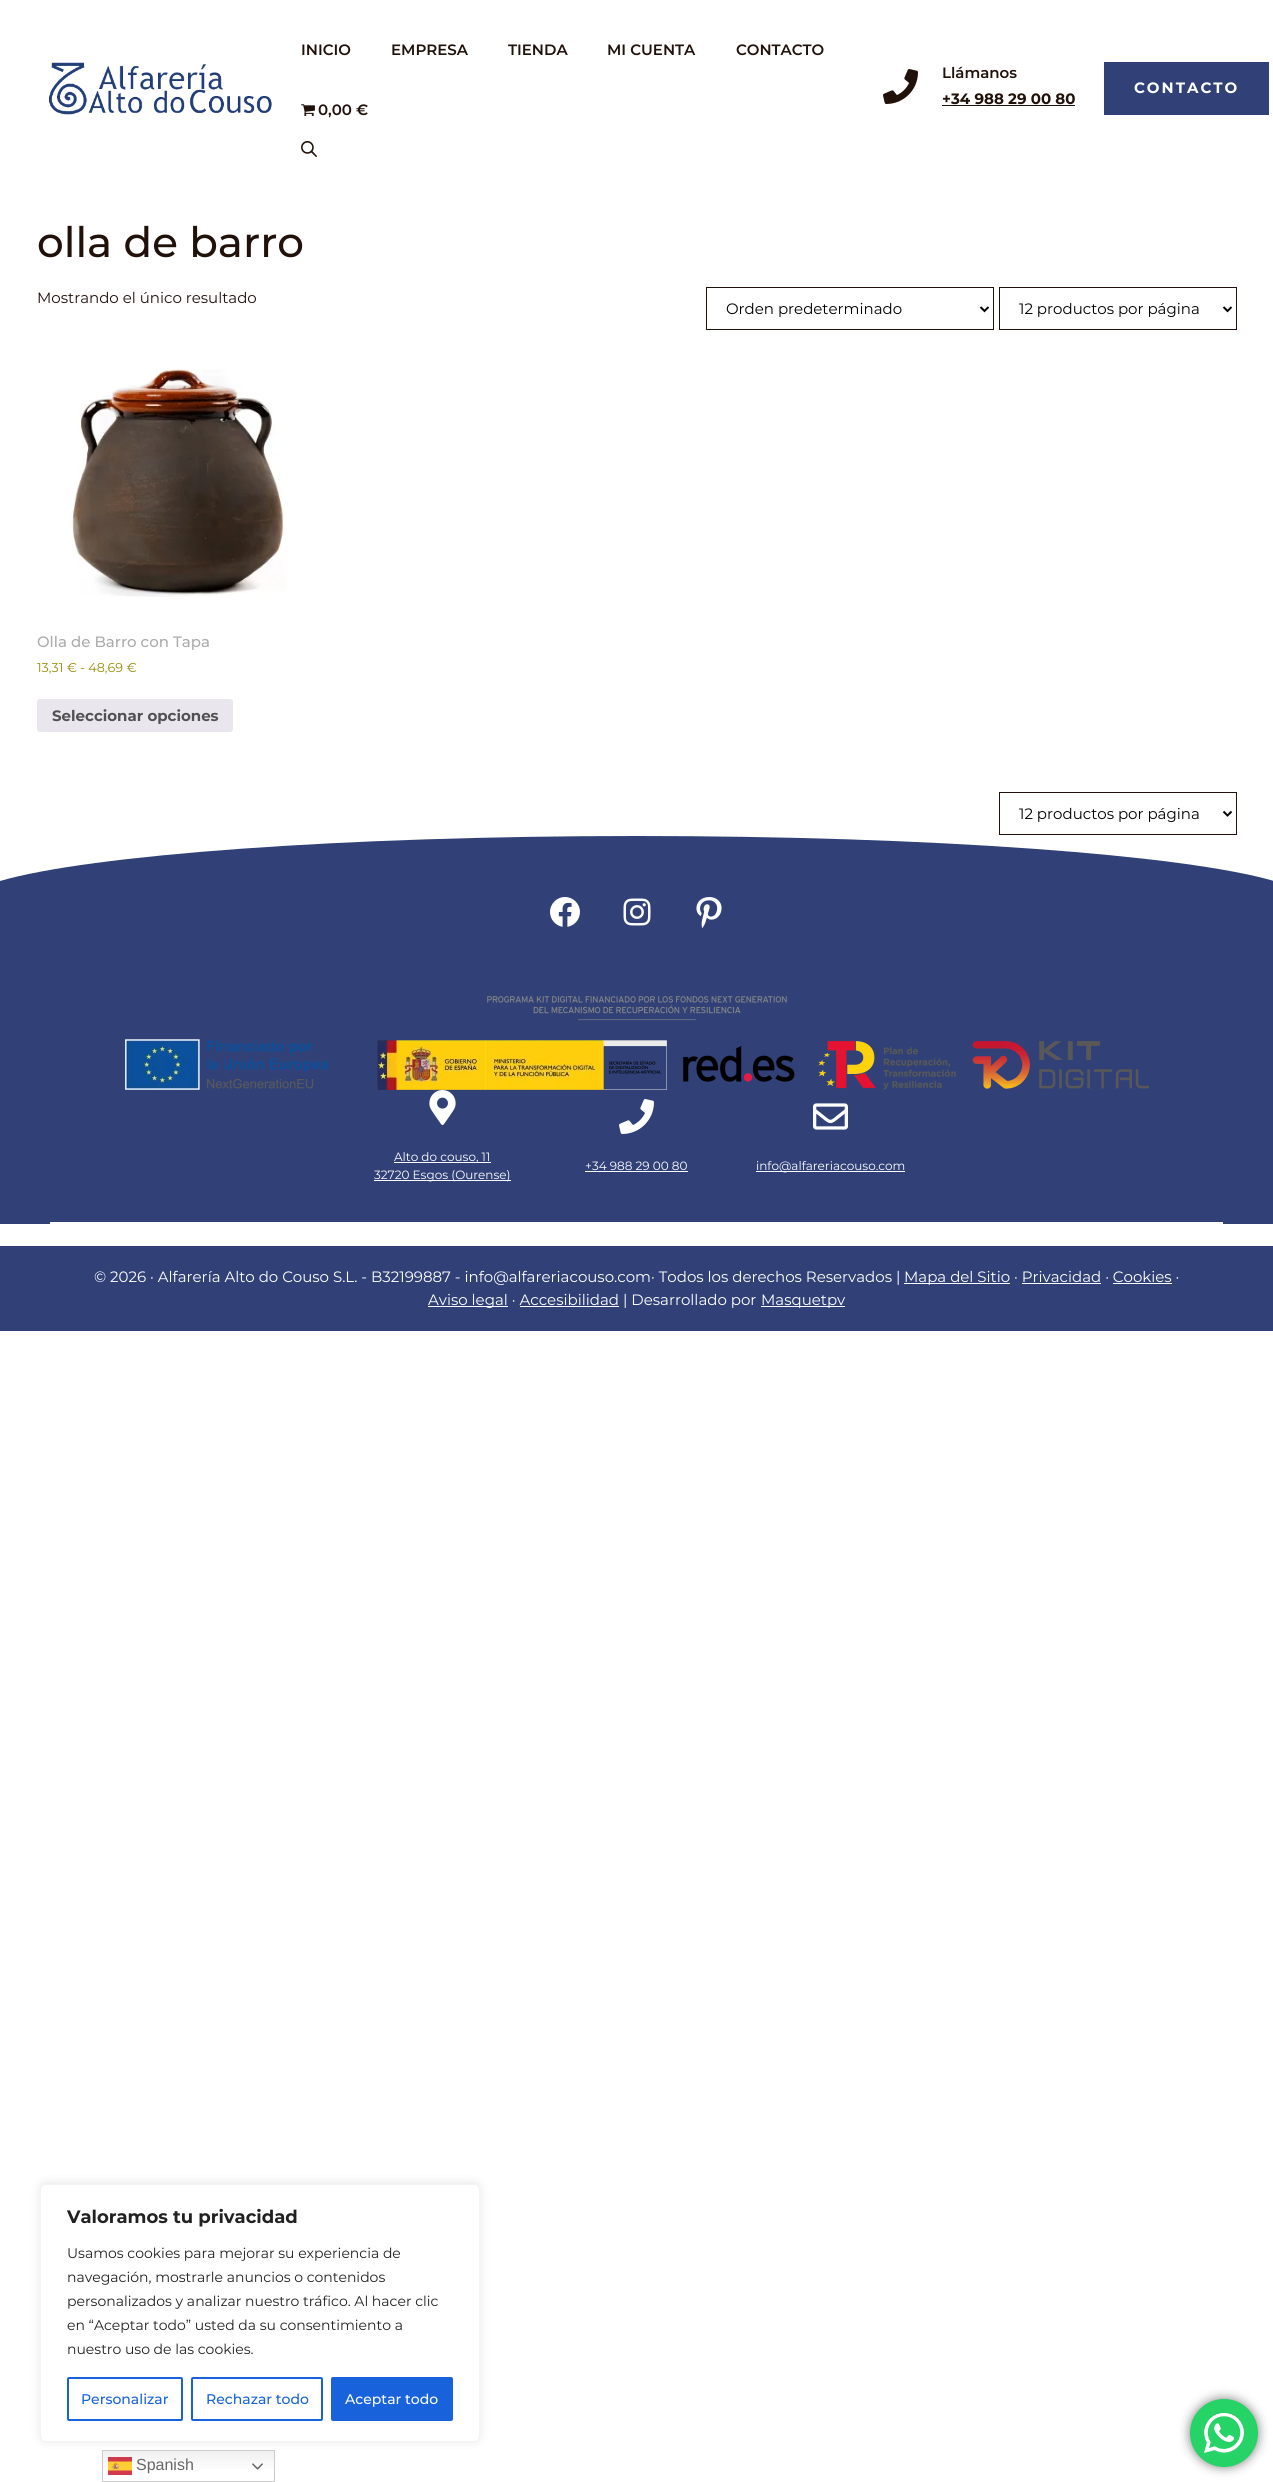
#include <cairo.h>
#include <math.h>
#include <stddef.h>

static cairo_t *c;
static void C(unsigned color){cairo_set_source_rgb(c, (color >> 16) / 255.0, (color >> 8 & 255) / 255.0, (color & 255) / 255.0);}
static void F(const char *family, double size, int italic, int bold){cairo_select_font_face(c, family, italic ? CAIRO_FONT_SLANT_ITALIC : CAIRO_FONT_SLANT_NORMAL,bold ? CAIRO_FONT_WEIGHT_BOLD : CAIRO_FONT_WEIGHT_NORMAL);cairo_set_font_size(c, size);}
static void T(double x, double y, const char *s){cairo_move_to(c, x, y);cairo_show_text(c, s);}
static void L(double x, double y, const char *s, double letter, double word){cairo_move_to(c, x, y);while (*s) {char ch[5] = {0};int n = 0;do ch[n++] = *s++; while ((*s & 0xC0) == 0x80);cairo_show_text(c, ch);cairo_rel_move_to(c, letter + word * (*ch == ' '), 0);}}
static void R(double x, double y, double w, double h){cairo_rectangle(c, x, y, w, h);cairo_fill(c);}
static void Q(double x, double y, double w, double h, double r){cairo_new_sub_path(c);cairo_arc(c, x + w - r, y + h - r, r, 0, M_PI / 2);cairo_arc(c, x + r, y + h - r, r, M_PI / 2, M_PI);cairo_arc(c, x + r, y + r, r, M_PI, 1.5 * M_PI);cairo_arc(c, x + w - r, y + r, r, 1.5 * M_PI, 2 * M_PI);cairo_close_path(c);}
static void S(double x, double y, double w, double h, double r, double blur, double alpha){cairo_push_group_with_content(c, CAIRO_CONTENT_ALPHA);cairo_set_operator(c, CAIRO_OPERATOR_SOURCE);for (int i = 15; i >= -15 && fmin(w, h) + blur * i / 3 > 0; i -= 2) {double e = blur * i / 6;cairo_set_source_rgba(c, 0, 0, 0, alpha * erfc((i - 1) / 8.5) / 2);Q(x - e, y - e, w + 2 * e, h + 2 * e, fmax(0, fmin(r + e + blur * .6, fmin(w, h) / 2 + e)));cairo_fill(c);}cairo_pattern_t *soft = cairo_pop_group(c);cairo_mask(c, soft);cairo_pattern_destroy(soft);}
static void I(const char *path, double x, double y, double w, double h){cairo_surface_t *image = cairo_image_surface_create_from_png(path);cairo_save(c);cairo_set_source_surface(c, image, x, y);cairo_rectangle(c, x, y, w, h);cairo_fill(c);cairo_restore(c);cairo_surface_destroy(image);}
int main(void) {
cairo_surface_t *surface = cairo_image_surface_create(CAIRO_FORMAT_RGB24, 1273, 2482);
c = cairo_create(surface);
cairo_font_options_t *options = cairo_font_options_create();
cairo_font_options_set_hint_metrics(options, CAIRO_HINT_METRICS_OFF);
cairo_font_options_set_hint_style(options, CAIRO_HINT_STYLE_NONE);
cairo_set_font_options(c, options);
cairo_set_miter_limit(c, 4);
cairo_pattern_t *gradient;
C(0xffffff);
cairo_paint(c);
I("1.png",49,62,223,53);
F("Montserrat SemiBold",15,0,0);
C(0x21110b);
T(301,55,"INICIO");
T(391,55,"EMPRESA");
T(508,55,"TIENDA");
T(607,55,"MI CUENTA");
T(736,55,"CONTACTO");
I("2.png",301,104,14,13);
T(318,115,"0,00 €");
I("3.png",301,141,16,16);
I("4.png",883,69,35,35);
T(942,78,"Llámanos");
F("Montserrat",15,0,1);
T(942,104,"+34 988 29 00 80");
R(942,105,133,1);
C(0x314178);
R(1104,62,165,53);
C(0xffffff);
L(1134,93,"CONTACTO",2,0);
F("Montserrat Medium",42,0,0);
C(0x21110b);
T(37,257,"olla de barro");
F("Montserrat",15,0,0);
T(37,303,"Mostrando el único resultado");
cairo_rectangle(c,706.5,287.5,287,42);
cairo_set_line_width(c,1);
cairo_stroke(c);
cairo_new_path(c);
cairo_move_to(c,980.5,307);
cairo_line_to(c,984.5,311);
cairo_line_to(c,988.5,307);
C(0x000000);
cairo_set_line_width(c,2);
cairo_stroke(c);
T(726,314,"Orden predeterminado");
cairo_rectangle(c,999.5,287.5,237,42);
C(0x21110b);
cairo_set_line_width(c,1);
cairo_stroke(c);
cairo_new_path(c);
cairo_move_to(c,1223.5,307);
cairo_line_to(c,1227.5,311);
cairo_line_to(c,1231.5,307);
C(0x000000);
cairo_set_line_width(c,2);
cairo_stroke(c);
T(1019,314,"12 productos por página");
I("5.png",72,369,215,228);
F("Montserrat Medium",15,0,0);
C(0xababab);
T(37,647,"Olla de Barro con Tapa");
F("Montserrat",12.75,0,0);
C(0x958e09);
T(37,672,"13,31 € - 48,69 €");
C(0xe9e6ed);
Q(37,699,196,33,3);
cairo_fill(c);
F("Montserrat",15,0,1);
C(0x515151);
T(52,721,"Seleccionar opciones");
cairo_rectangle(c,999.5,792.5,237,42);
C(0x21110b);
cairo_set_line_width(c,1);
cairo_stroke(c);
cairo_new_path(c);
cairo_move_to(c,1223.5,811.5);
cairo_line_to(c,1227.5,815.5);
cairo_line_to(c,1231.5,811.5);
C(0x000000);
cairo_set_line_width(c,2);
cairo_stroke(c);
F("Montserrat",15,0,0);
T(1019,819,"12 productos por página");
C(0x314178);
cairo_new_path(c);
cairo_move_to(c,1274,881);
cairo_line_to(c,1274,886);
cairo_line_to(c,0,886);
cairo_line_to(c,0,881);
cairo_curve_to(c,89,855,341,836,637,836);
cairo_curve_to(c,933,836,1185,855,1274,881);
cairo_close_path(c);
cairo_fill(c);
R(0,886,1273,338);
C(0xffffff);
R(50,1222,1173,2);
I("6.png",550,897,30,30);
I("7.png",623,898,28,28);
I("8.png",696,897,26,32);
I("9.png",125,996,1024,94);
I("10.png",429,1090,27,35);
R(394,1162,97,1);
F("Montserrat",12,0,0);
T(394,1161,"Alto do couso, 11");
R(374,1180,137,1);
T(374,1179,"32720 Esgos (Ourense)");
I("11.png",619,1099,35,35);
T(585,1170,"+34 988 29 00 80");
R(585,1171,103,1);
I("12.png",813,1103,35,27);
R(756,1171,149,1);
T(756,1170,"info@alfareriacouso.com");
C(0x314178);
R(0,1246,1273,85);
F("Montserrat",15,0,0);
C(0xffffff);
T(94,1282,"© 2026 · Alfarería Alto do Couso S.L. - B32199887 - info@alfareriacouso.com· Todos los derechos Reservados |");
R(904,1283,106,1);
T(904,1282,"Mapa del Sitio · Privacidad · Cookies ·");
R(1022,1283,79,1);
R(1113,1283,59,1);
R(428,1306,80,1);
T(428,1305,"Aviso legal · Accesibilidad | Desarrollado por");
R(761,1306,84,1);
T(761,1305,"Masquetpv");
R(520,1306,99,1);
gradient = cairo_pattern_create_linear(189,2450,189,2482);
cairo_pattern_add_color_stop_rgba(gradient,0,0.937,0.937,0.937,1);
cairo_pattern_add_color_stop_rgba(gradient,.7,1,1,1,1);
cairo_set_source(c,gradient);
cairo_pattern_destroy(gradient);
R(103,2451,171,18);
cairo_rectangle(c,102.5,2450.5,172,31);
C(0xcccccc);
cairo_set_line_width(c,1);
cairo_stroke(c);
C(0xacabab);
S(40,2183,440,258,6,5,.3);
C(0xffffff);
Q(40.5,2184.5,439,257,5.5);
cairo_fill_preserve(c);
C(0xf4f4f4);
cairo_stroke(c);
F("Montserrat",18,0,1);
C(0x212121);
T(67,2223,"Valoramos tu privacidad");
F("Montserrat",14,0,0);
T(67,2258,"Usamos cookies para mejorar su experiencia de");
T(67,2282,"navegación, mostrarle anuncios o contenidos");
T(67,2306,"personalizados y analizar nuestro tráfico. Al hacer clic");
T(67,2330,"en “Aceptar todo” usted da su consentimiento a");
T(67,2354,"nuestro uso de las cookies.");
Q(68,2378,114,42,1);
C(0x1863dc);
cairo_set_line_width(c,2);
cairo_stroke(c);
F("Montserrat Medium",14,0,0);
T(81,2404,"Personalizar");
Q(192,2378,130,42,1);
cairo_stroke(c);
T(206,2404,"Rechazar todo");
Q(332,2378,120,42,1);
cairo_fill_preserve(c);
cairo_stroke(c);
C(0xffffff);
T(345,2404,"Aceptar todo");
I("13.png",108,2457,24,18);
F("Liberation Sans",16,0,0);
C(0x666666);
T(136,2470,"Spanish");
I("14.png",252,2463,11,7);
C(0x000000);
S(1190,2399,68,68,34,5.5,.5);
C(0x25d366);
cairo_arc(c,1224,2433,34,0,2 * M_PI);
cairo_fill(c);
I("15.png",1204,2413,40,40);
cairo_surface_write_to_png(surface, "o.png");
cairo_font_options_destroy(options);
cairo_destroy(c);
cairo_surface_destroy(surface);
return 0;
}
